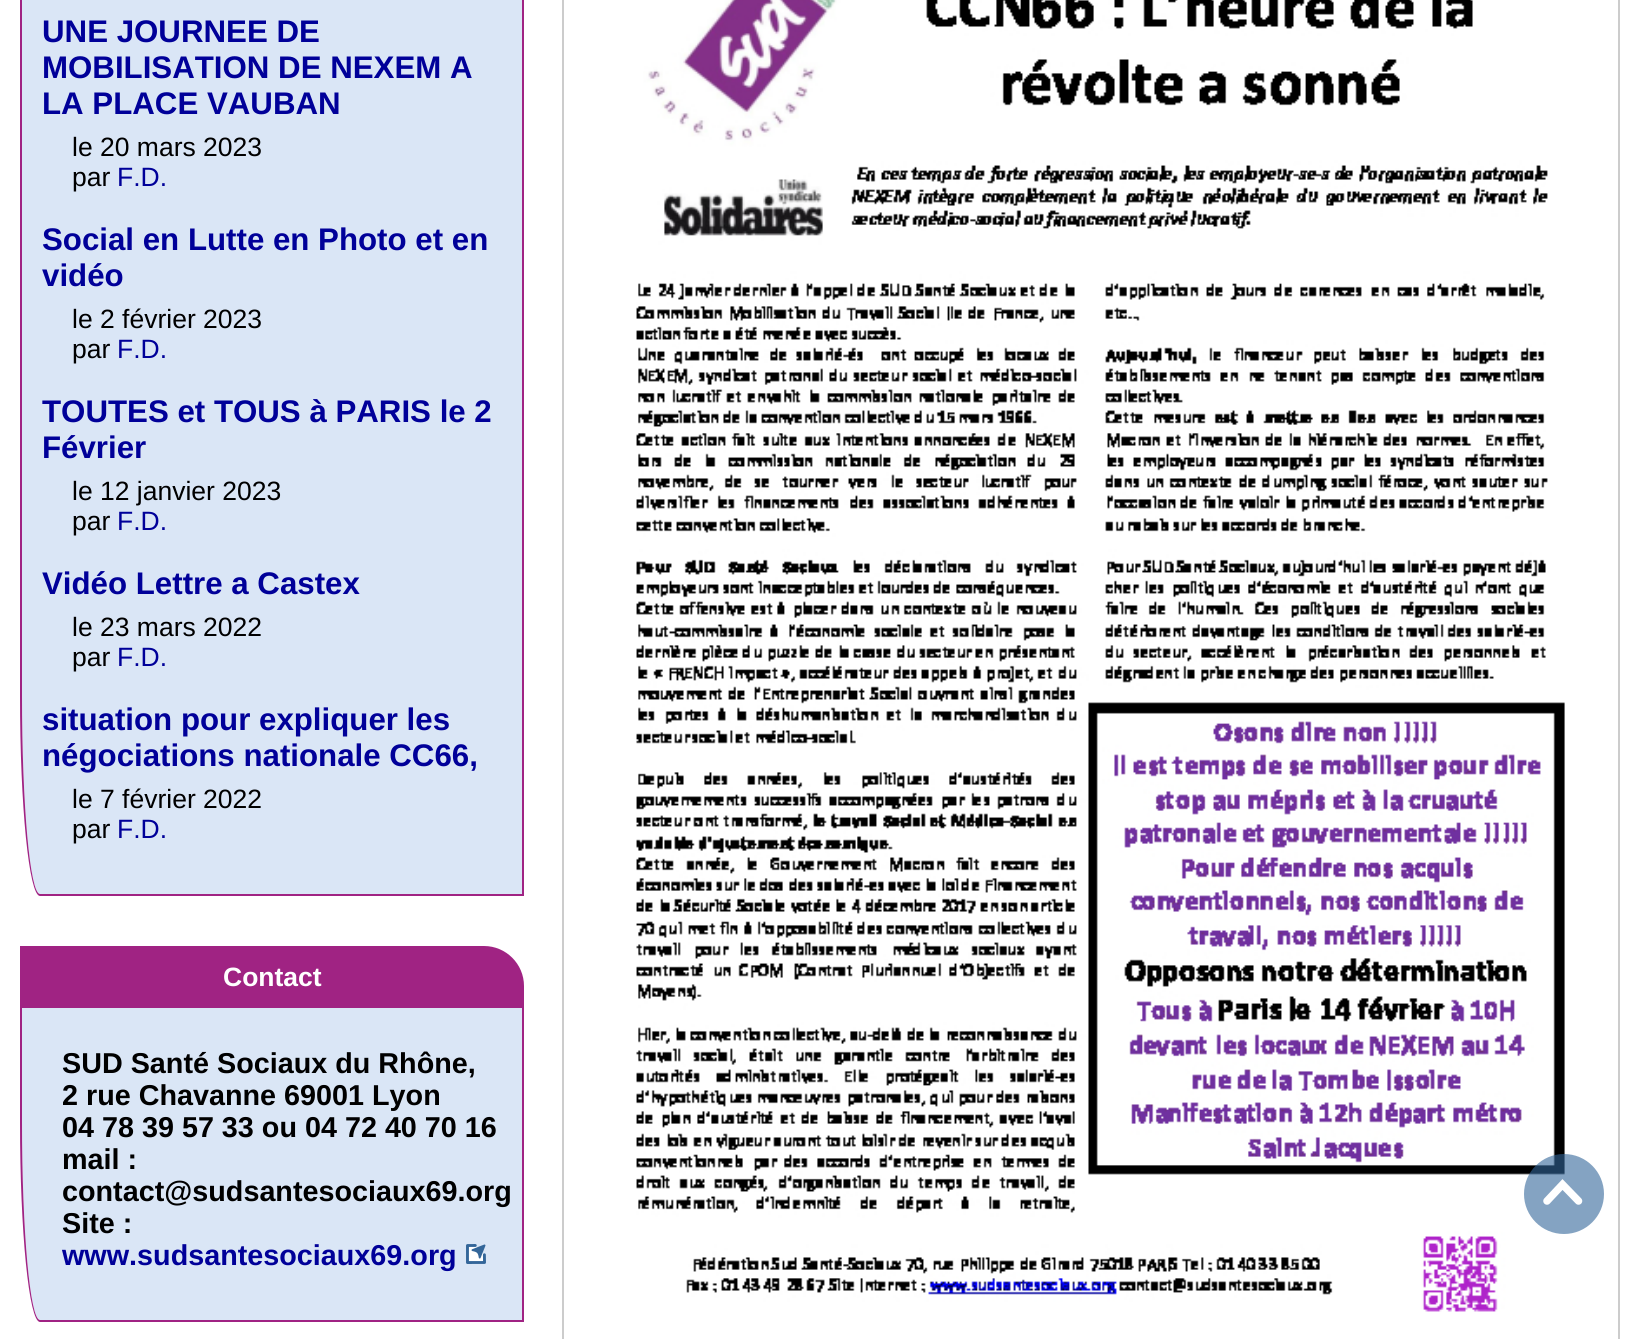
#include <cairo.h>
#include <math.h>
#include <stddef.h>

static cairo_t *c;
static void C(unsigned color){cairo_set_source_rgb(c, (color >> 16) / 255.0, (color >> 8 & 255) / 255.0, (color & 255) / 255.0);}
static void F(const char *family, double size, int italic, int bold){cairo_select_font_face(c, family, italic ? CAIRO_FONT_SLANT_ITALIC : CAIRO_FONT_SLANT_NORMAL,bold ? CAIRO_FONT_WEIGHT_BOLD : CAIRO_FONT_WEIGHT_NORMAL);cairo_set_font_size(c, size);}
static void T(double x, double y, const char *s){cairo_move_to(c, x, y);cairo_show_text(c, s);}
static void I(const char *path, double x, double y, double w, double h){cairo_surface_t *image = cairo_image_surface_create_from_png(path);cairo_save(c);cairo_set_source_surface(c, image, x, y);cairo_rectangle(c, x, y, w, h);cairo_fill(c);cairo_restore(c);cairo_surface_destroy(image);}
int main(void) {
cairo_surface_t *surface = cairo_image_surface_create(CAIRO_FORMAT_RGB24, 1639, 1339);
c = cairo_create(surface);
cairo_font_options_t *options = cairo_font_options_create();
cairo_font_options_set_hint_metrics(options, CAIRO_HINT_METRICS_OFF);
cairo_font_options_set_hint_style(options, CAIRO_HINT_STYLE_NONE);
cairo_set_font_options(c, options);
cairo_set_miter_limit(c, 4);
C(0xffffff);
cairo_paint(c);
C(0xdae6f6);
cairo_new_path(c);
cairo_move_to(c,22,-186);
cairo_line_to(c,522,-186);
cairo_line_to(c,522,894);
cairo_line_to(c,40,894);
cairo_curve_to(c,30,894,22,805,22,696);
cairo_close_path(c);
cairo_fill(c);
C(0xa02383);
cairo_set_fill_rule(c,CAIRO_FILL_RULE_EVEN_ODD);
cairo_new_path(c);
cairo_move_to(c,20,-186);
cairo_line_to(c,524,-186);
cairo_line_to(c,524,896);
cairo_line_to(c,40,896);
cairo_curve_to(c,29,896,20,806,20,696);
cairo_close_path(c);
cairo_move_to(c,22,-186);
cairo_line_to(c,522,-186);
cairo_line_to(c,522,894);
cairo_line_to(c,40,894);
cairo_curve_to(c,30,894,22,805,22,696);
cairo_close_path(c);
cairo_fill(c);
F("Liberation Sans",31.25,0,1);
C(0x000099);
T(42,42,"UNE JOURNEE DE");
T(42,78,"MOBILISATION DE NEXEM A");
T(42,114,"LA PLACE VAUBAN");
F("Liberation Sans",26.5,0,0);
C(0x000000);
T(72,156,"le 20 mars 2023");
T(72,186,"par");
C(0x000099);
T(117,186,"F.D.");
F("Liberation Sans",31.25,0,1);
T(42,250,"Social en Lutte en Photo et en");
T(42,286,"vidéo");
F("Liberation Sans",26.5,0,0);
C(0x000000);
T(72,328,"le 2 février 2023");
T(72,358,"par");
C(0x000099);
T(117,358,"F.D.");
F("Liberation Sans",31.25,0,1);
T(42,422,"TOUTES et TOUS à PARIS le 2");
T(42,458,"Février");
F("Liberation Sans",26.5,0,0);
C(0x000000);
T(72,500,"le 12 janvier 2023");
T(72,530,"par");
C(0x000099);
T(117,530,"F.D.");
F("Liberation Sans",31.25,0,1);
T(42,594,"Vidéo Lettre a Castex");
F("Liberation Sans",26.5,0,0);
C(0x000000);
T(72,636,"le 23 mars 2022");
T(72,666,"par");
C(0x000099);
T(117,666,"F.D.");
F("Liberation Sans",31.25,0,1);
T(42,730,"situation pour expliquer les");
T(42,766,"négociations nationale CC66,");
F("Liberation Sans",26.5,0,0);
C(0x000000);
T(72,808,"le 7 février 2022");
T(72,838,"par");
C(0x000099);
T(117,838,"F.D.");
C(0xa02383);
cairo_new_path(c);
cairo_move_to(c,20,946);
cairo_line_to(c,484,946);
cairo_curve_to(c,506,946,524,964,524,986);
cairo_line_to(c,524,1008);
cairo_line_to(c,20,1008);
cairo_close_path(c);
cairo_fill(c);
F("Liberation Sans",26.5,0,1);
C(0xffffff);
T(223,986,"Contact");
C(0xdae6f6);
cairo_set_fill_rule(c,CAIRO_FILL_RULE_WINDING);
cairo_new_path(c);
cairo_move_to(c,22,1008);
cairo_line_to(c,522,1008);
cairo_line_to(c,522,1320);
cairo_line_to(c,40,1320);
cairo_curve_to(c,30,1320,22,1231,22,1122);
cairo_close_path(c);
cairo_fill(c);
C(0xa02383);
cairo_set_fill_rule(c,CAIRO_FILL_RULE_EVEN_ODD);
cairo_new_path(c);
cairo_move_to(c,20,1008);
cairo_line_to(c,524,1008);
cairo_line_to(c,524,1322);
cairo_line_to(c,40,1322);
cairo_curve_to(c,29,1322,20,1232,20,1122);
cairo_close_path(c);
cairo_move_to(c,22,1008);
cairo_line_to(c,522,1008);
cairo_line_to(c,522,1320);
cairo_line_to(c,40,1320);
cairo_curve_to(c,30,1320,22,1231,22,1122);
cairo_close_path(c);
cairo_fill(c);
F("Liberation Sans",28.75,0,1);
C(0x000000);
T(62,1073,"SUD Santé Sociaux du Rhône,");
T(62,1105,"2 rue Chavanne 69001 Lyon");
T(62,1137,"04 78 39 57 33 ou 04 72 40 70 16");
T(62,1169,"mail :");
T(62,1201,"contact@sudsantesociaux69.org");
T(62,1233,"Site :");
C(0x000099);
T(62,1265,"www.sudsantesociaux69.org");
I("1.png",466,1244,20,20);
cairo_rectangle(c,563,-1,1056,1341);
C(0xcccccc);
cairo_stroke(c);
I("2.png",636,0,929,1312);
cairo_set_source_rgba(c,0.2,0.4,0.6,0.6);
cairo_arc(c,1564,1194,40,0,2 * M_PI);
cairo_fill(c);
cairo_new_path(c);
cairo_move_to(c,1547,1201);
cairo_line_to(c,1562.5,1184.5);
cairo_line_to(c,1578.5,1201);
C(0xffffff);
cairo_set_line_width(c,7.5);
cairo_set_line_cap(c,CAIRO_LINE_CAP_ROUND);
cairo_stroke(c);
cairo_surface_write_to_png(surface, "o.png");
cairo_font_options_destroy(options);
cairo_destroy(c);
cairo_surface_destroy(surface);
return 0;
}
